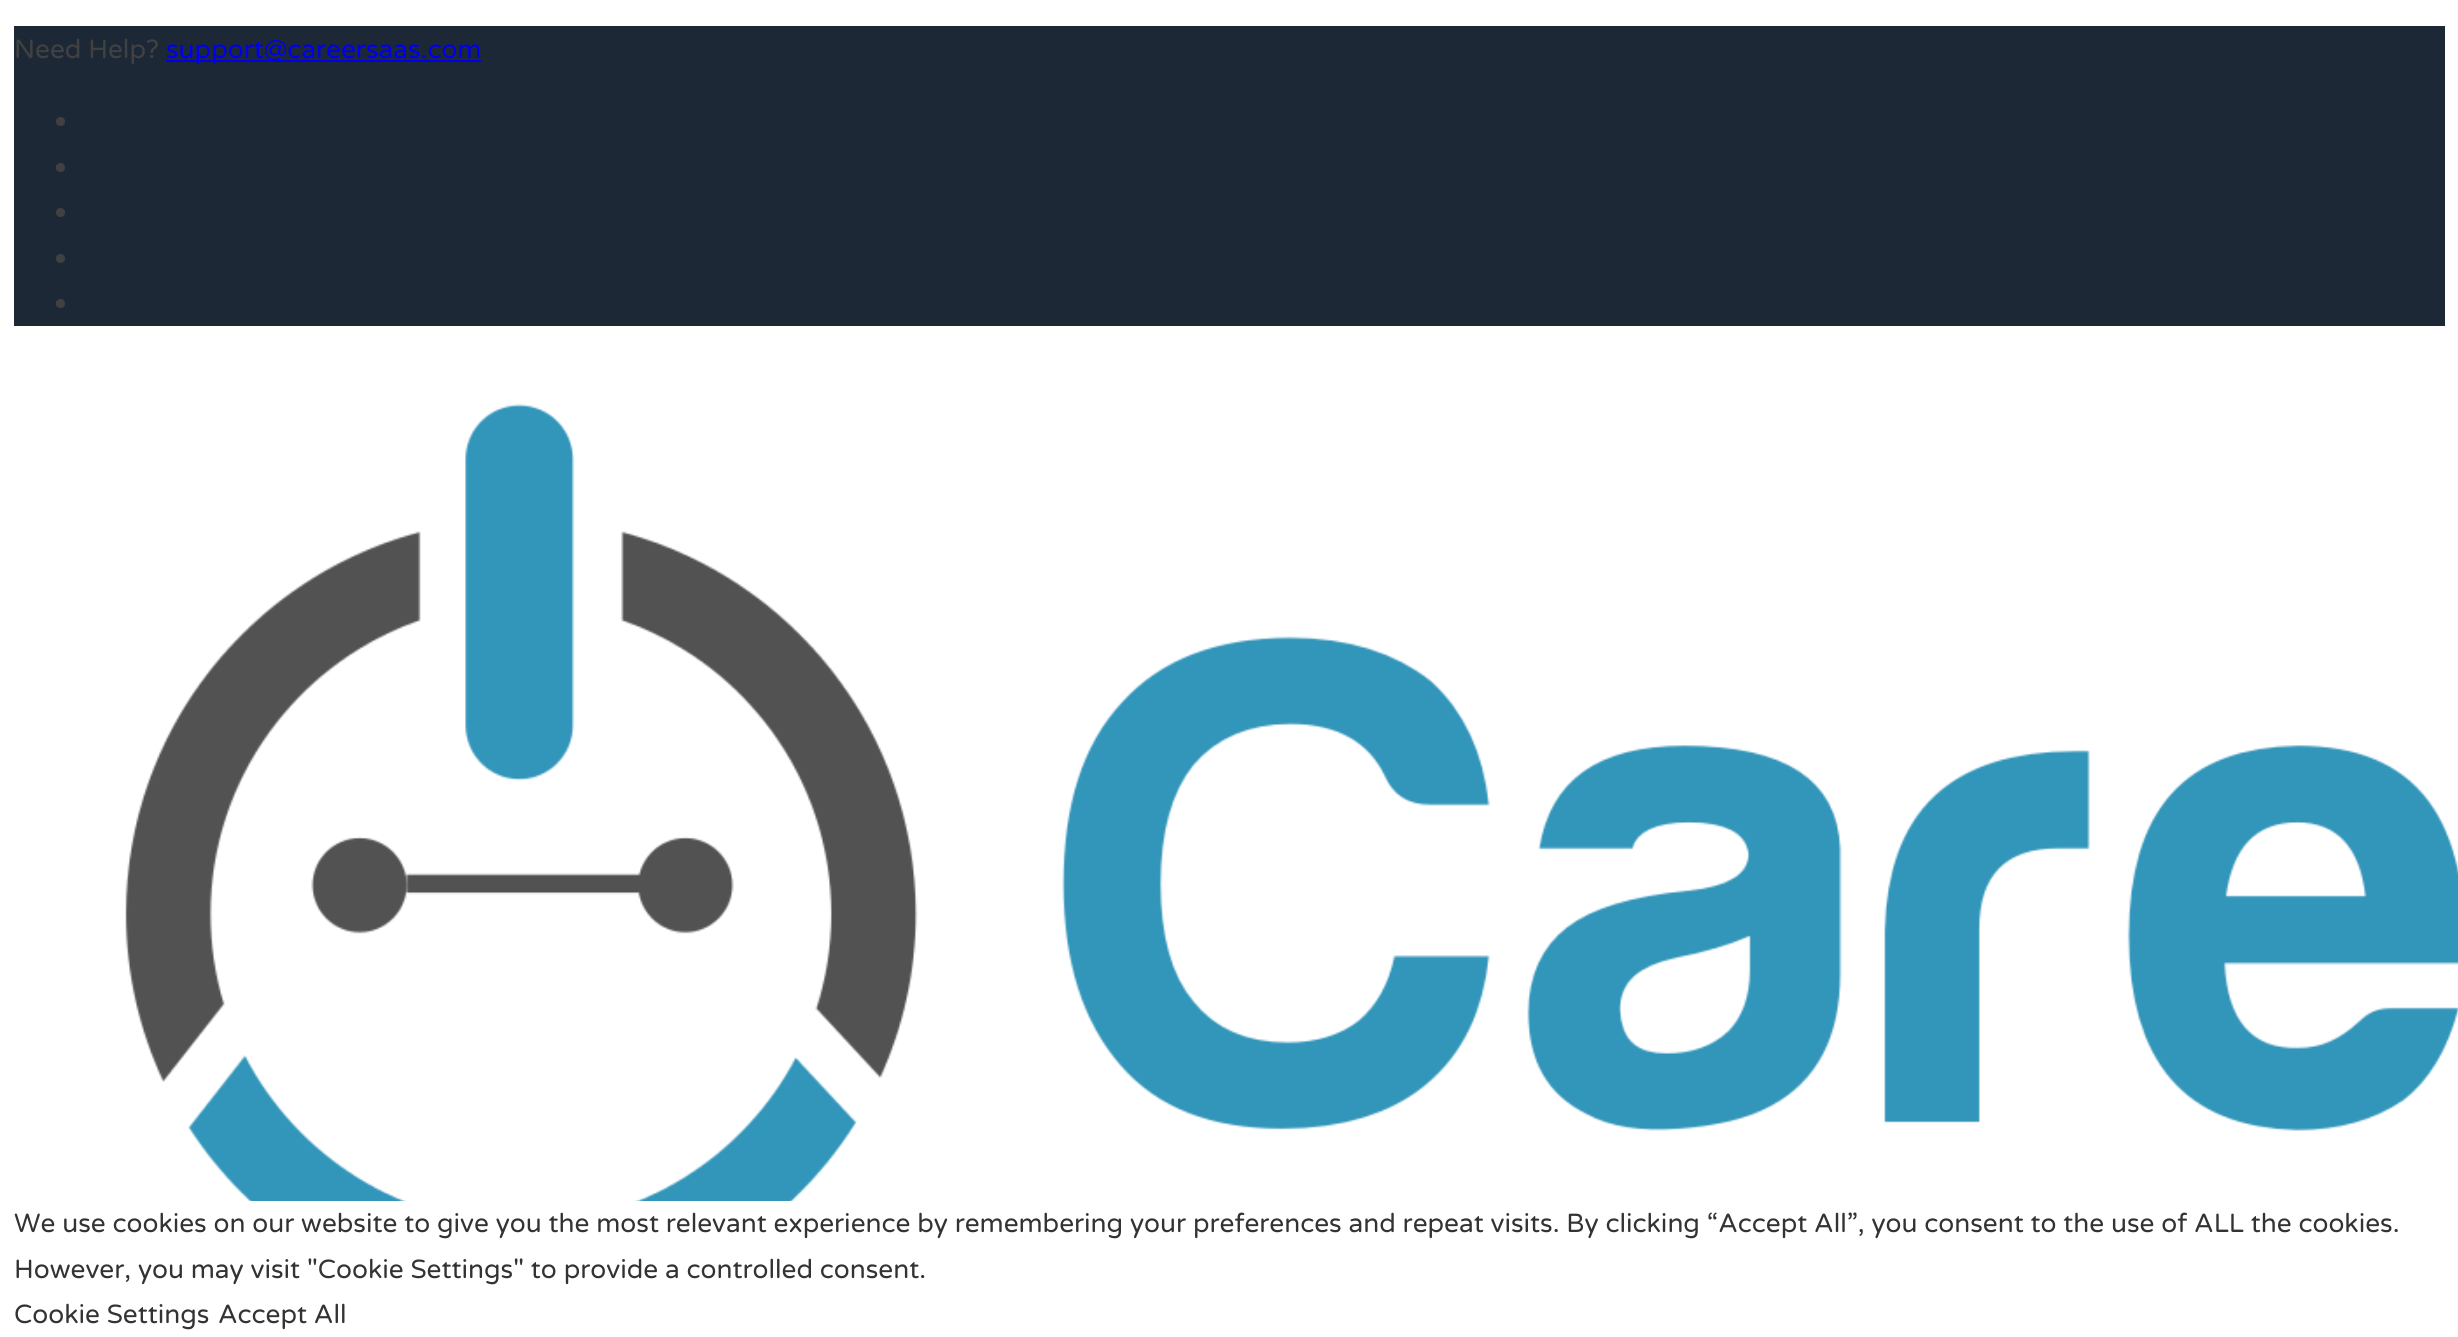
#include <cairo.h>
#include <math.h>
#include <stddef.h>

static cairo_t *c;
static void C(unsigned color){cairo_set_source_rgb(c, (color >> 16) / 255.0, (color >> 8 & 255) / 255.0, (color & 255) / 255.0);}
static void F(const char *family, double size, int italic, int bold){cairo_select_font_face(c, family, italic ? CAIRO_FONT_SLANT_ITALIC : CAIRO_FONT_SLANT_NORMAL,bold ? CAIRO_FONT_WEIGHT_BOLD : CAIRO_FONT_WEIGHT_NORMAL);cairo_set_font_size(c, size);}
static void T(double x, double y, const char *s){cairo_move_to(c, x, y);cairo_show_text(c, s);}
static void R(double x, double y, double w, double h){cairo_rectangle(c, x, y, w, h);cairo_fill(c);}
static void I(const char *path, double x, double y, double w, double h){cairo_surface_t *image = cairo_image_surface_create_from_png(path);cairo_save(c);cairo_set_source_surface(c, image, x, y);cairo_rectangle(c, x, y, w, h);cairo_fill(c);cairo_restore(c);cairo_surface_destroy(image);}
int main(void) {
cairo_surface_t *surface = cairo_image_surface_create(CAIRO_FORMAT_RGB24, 2458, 1337);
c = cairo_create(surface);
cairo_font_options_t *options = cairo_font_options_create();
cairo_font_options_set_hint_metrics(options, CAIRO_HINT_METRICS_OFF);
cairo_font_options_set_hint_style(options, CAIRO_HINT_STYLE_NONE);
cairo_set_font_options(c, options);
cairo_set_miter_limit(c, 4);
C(0xffffff);
cairo_paint(c);
C(0x1d2837);
R(14,26,2431,300);
F("Varela Round",26.25,0,0);
C(0x424141);
T(14,58,"Need Help?");
C(0x0000ee);
R(166,60,315,2);
T(166,58,"support@careersaas.com");
C(0x424141);
cairo_new_path(c);
cairo_arc(c,60.5,121.5,4.5,0,2 * M_PI);
cairo_fill(c);
cairo_arc(c,60.5,167.5,4.5,0,2 * M_PI);
cairo_fill(c);
cairo_arc(c,60.5,212.5,4.5,0,2 * M_PI);
cairo_fill(c);
cairo_arc(c,60.5,258.5,4.5,0,2 * M_PI);
cairo_fill(c);
cairo_arc(c,60.5,303.5,4.5,0,2 * M_PI);
cairo_fill(c);
I("1.png",125,404,2333,797);
C(0x333333);
T(14,1232,"We use cookies on our website to give you the most relevant experience by remembering your preferences and repeat visits. By clicking “Accept All”, you consent to the use of ALL the cookies.");
T(14,1278,"However, you may visit \"Cookie Settings\" to provide a controlled consent.");
T(14,1323,"Cookie Settings");
T(218,1323,"Accept All");
cairo_surface_write_to_png(surface, "o.png");
cairo_font_options_destroy(options);
cairo_destroy(c);
cairo_surface_destroy(surface);
return 0;
}
